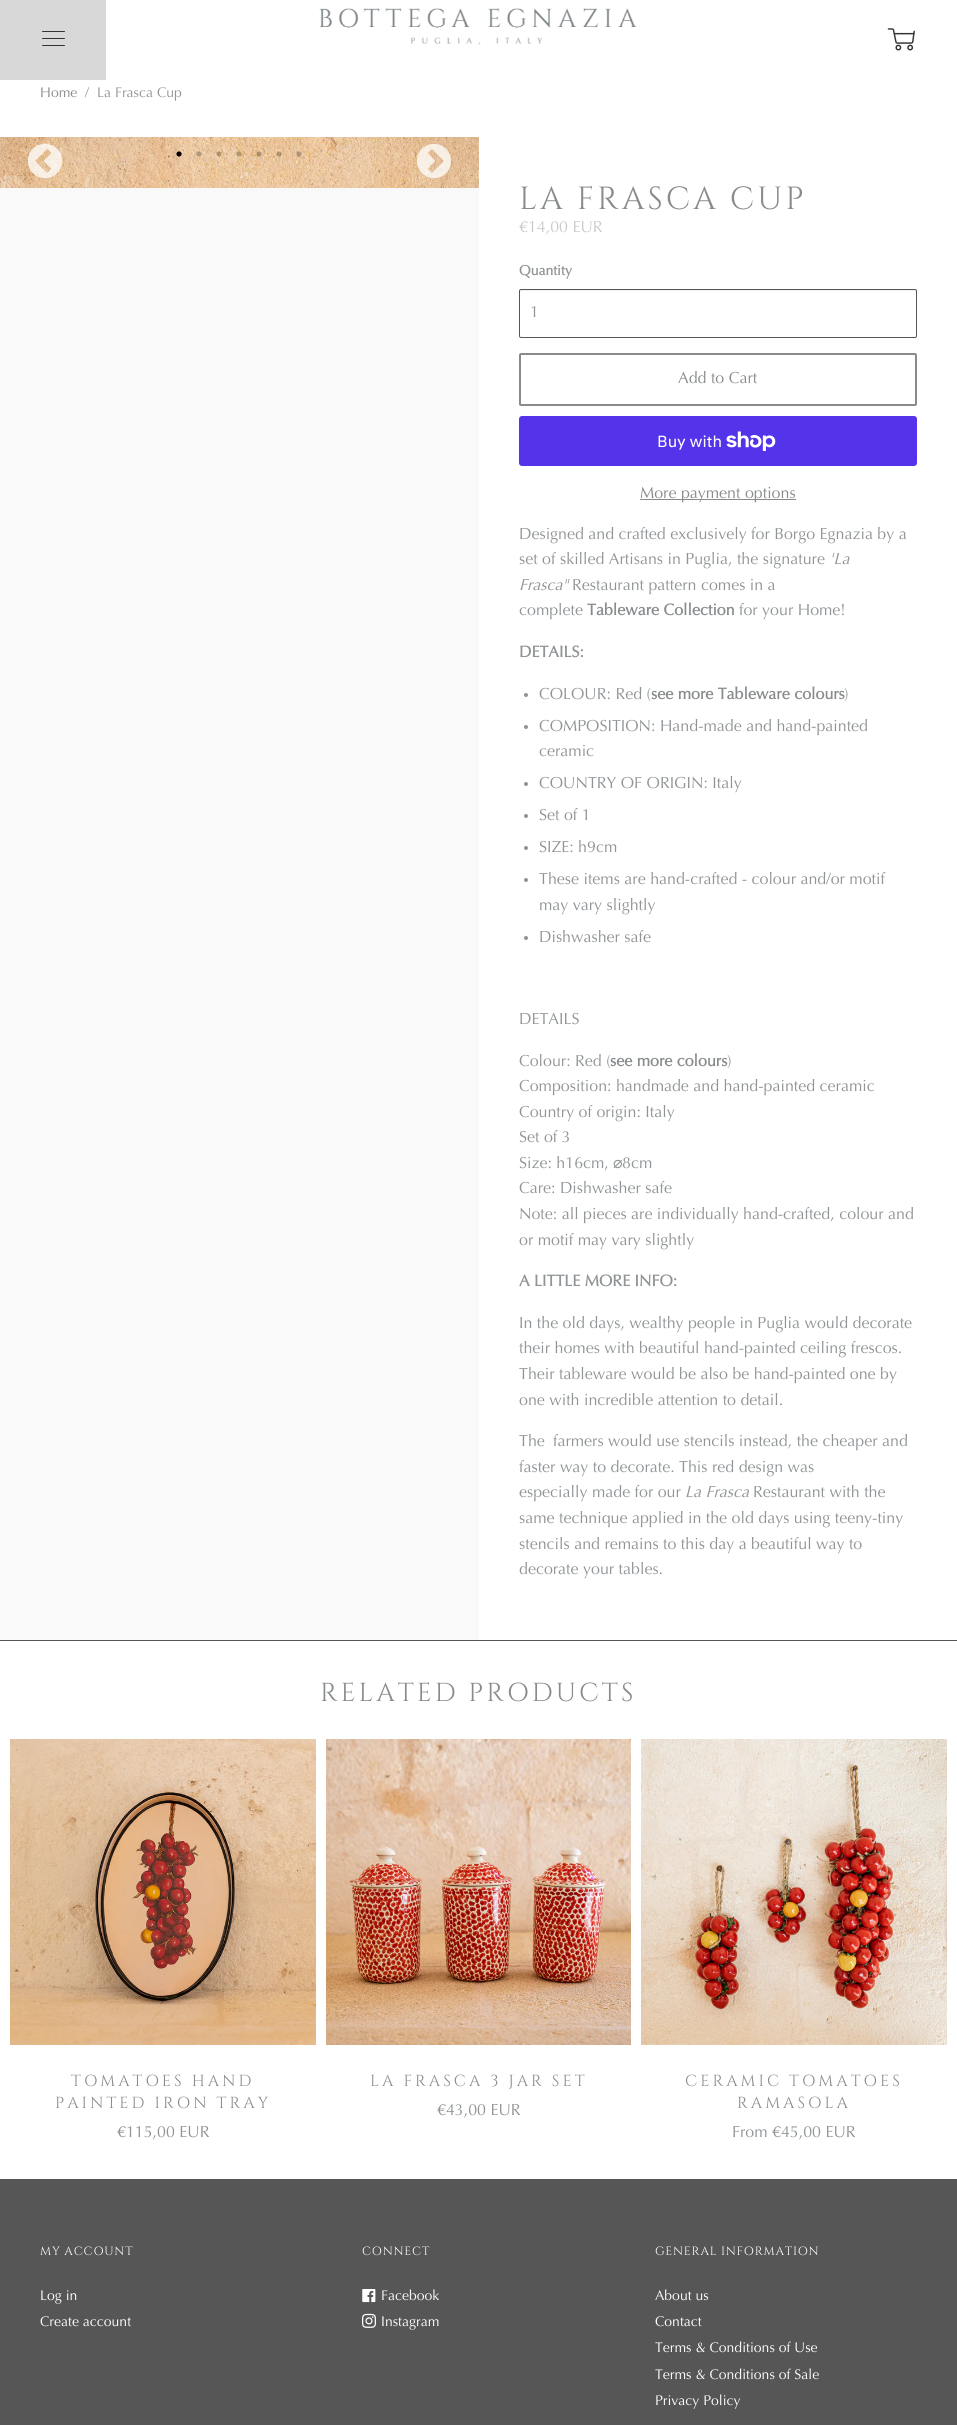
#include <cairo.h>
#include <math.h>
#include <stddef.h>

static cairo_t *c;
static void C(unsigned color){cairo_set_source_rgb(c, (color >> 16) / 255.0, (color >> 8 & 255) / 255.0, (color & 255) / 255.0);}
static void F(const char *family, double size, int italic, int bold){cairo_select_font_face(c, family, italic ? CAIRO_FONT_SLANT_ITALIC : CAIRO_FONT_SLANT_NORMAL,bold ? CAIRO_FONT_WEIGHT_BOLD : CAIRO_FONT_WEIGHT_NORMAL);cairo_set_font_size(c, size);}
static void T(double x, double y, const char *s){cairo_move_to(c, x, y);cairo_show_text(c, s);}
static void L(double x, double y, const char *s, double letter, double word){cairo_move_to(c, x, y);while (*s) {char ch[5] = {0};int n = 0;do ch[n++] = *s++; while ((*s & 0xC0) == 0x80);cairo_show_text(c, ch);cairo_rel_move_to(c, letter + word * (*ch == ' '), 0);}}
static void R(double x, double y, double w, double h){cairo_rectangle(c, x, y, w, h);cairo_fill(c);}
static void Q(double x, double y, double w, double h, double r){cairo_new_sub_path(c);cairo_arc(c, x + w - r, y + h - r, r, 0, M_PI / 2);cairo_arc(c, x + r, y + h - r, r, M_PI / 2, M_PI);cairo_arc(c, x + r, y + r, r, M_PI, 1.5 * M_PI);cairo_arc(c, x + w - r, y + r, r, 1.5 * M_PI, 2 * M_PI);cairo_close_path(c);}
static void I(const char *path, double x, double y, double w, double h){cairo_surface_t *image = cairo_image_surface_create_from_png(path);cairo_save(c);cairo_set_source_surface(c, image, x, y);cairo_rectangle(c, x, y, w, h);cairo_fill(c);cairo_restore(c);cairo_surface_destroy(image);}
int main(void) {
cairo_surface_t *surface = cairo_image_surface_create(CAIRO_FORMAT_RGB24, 957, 2425);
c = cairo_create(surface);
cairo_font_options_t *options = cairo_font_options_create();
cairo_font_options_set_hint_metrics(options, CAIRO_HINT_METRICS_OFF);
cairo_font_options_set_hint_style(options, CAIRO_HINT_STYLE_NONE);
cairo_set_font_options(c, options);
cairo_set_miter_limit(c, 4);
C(0xffffff);
cairo_paint(c);
C(0xd8d8d8);
R(0,0,106,80);
C(0x333333);
Q(42,31,23,1,.5);
cairo_fill(c);
Q(42,38,23,1,.5);
cairo_fill(c);
Q(42,45,23,1,.5);
cairo_fill(c);
I("1.png",319,8,318,37);
I("2.png",887,28,28,23);
C(0x565656);
R(0,1640,957,1);
F("Optima",14,0,0);
C(0x888b8d);
T(40,97,"Home");
C(0x909496);
T(85,97,"/");
T(97,97,"La Frasca Cup");
C(0xf9f9f9);
R(0,188,479,1452);
I("3.png",0,137,479,51);
I("4.png",27,143,36,36);
I("5.png",176,151,6,6);
I("6.png",196,151,6,6);
I("7.png",216,151,6,6);
I("8.png",236,151,6,6);
I("9.png",256,151,6,6);
I("10.png",276,151,6,6);
I("11.png",296,151,6,6);
I("12.png",416,143,36,36);
F("Cinzel",32,0,0);
C(0x888b8d);
L(519,209,"LA FRASCA CUP",3,0);
F("Optima",16,0,0);
C(0xc8cacb);
T(519,232,"€14,00 EUR");
F("Optima",14,0,1);
C(0x909496);
T(519,275,"Quantity");
C(0xf0f0f0);
cairo_new_path(c);
cairo_move_to(c,521,291);
cairo_line_to(c,915,291);
cairo_line_to(c,916,292);
cairo_line_to(c,916,290);
cairo_line_to(c,718,290);
cairo_line_to(c,521,290);
cairo_line_to(c,520,291);
cairo_line_to(c,520,292);
cairo_close_path(c);
cairo_fill(c);
Q(519.5,289.5,397,48,1.5);
C(0x565656);
cairo_set_line_width(c,1);
cairo_stroke(c);
F("Optima",16,0,0);
C(0x909496);
T(530,317,"1");
Q(520,354,396,51,1);
C(0x888b8d);
cairo_set_line_width(c,2);
cairo_stroke(c);
T(678,383,"Add to Cart");
C(0x5433eb);
Q(519,416,398,50,3);
cairo_fill(c);
F("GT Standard",16,0,0);
C(0xffffff);
T(657,447,"Buy with");
I("13.png",726,431,50,20);
C(0x888b8d);
R(640,499,156,1);
F("Optima",16,0,0);
T(640,498,"More payment options");
C(0x909496);
T(519,539,"Designed and crafted exclusively for Borgo Egnazia by a");
T(519,564,"set of skilled Artisans in Puglia, the signature");
F("Optima",16,1,0);
T(829,564,"'La");
T(519,590,"Frasca\"");
F("Optima",16,0,0);
T(572,590,"Restaurant pattern comes in a");
T(519,615,"complete");
F("Optima",16,0,1);
C(0x888b8d);
T(587,615,"Tableware Collection");
F("Optima",16,0,0);
C(0x909496);
T(739,615,"for your Home!");
F("Optima",16,0,1);
T(519,657,"DETAILS:");
cairo_new_path(c);
cairo_arc(c,526,695,2,0,2 * M_PI);
cairo_fill(c);
F("Optima",16,0,0);
T(539,699,"COLOUR: Red (");
F("Optima",16,0,1);
C(0x888b8d);
T(651,699,"see more Tableware colours");
F("Optima",16,0,0);
C(0x909496);
T(844,699,")");
cairo_new_path(c);
cairo_arc(c,526,727,2,0,2 * M_PI);
cairo_fill(c);
T(539,731,"COMPOSITION: Hand-made and hand-painted");
T(539,756,"ceramic");
cairo_new_path(c);
cairo_arc(c,526,784,2,0,2 * M_PI);
cairo_fill(c);
T(539,788,"COUNTRY OF ORIGIN: Italy");
cairo_new_path(c);
cairo_arc(c,526,816,2,0,2 * M_PI);
cairo_fill(c);
T(539,820,"Set of 1");
cairo_new_path(c);
cairo_arc(c,526,848,2,0,2 * M_PI);
cairo_fill(c);
T(539,852,"SIZE: h9cm");
cairo_new_path(c);
cairo_arc(c,526,880,2,0,2 * M_PI);
cairo_fill(c);
T(539,884,"These items are hand-crafted - colour and/or motif");
T(539,910,"may vary slightly");
cairo_new_path(c);
cairo_arc(c,526,938,2,0,2 * M_PI);
cairo_fill(c);
T(539,942,"Dishwasher safe");
T(519,1024,"DETAILS");
T(519,1066,"Colour: Red (");
F("Optima",16,0,1);
C(0x888b8d);
T(610,1066,"see more colours");
F("Optima",16,0,0);
C(0x909496);
T(727,1066,")");
T(519,1091,"Composition: handmade and hand-painted ceramic");
T(519,1117,"Country of origin: Italy");
T(519,1142,"Set of 3");
T(519,1168,"Size: h16cm,");
F("DejaVu Sans",16,0,0);
T(613,1168,"⌀");
F("Optima",16,0,0);
T(622,1168,"8cm");
T(519,1193,"Care: Dishwasher safe");
T(519,1219,"Note: all pieces are individually hand-crafted, colour and");
T(519,1245,"or motif may vary slightly");
F("Optima",16,0,1);
T(519,1286,"A LITTLE MORE INFO:");
F("Optima",16,0,0);
T(519,1328,"In the old days, wealthy people in Puglia would decorate");
T(519,1353,"their homes with beautiful hand-painted ceiling frescos.");
T(519,1379,"Their tableware would be also be hand-painted one by");
T(519,1405,"one with incredible attention to detail.");
T(519,1446,"The");
T(553,1446,"farmers would use stencils instead, the cheaper and");
T(519,1472,"faster way to decorate. This red design was");
T(519,1497,"especially made for our");
F("Optima",16,1,0);
T(685,1497,"La Frasca");
F("Optima",16,0,0);
T(753,1497,"Restaurant with the");
T(519,1523,"same technique applied in the old days using teeny-tiny");
T(519,1549,"stencils and remains to this day a beautiful way to");
T(519,1574,"decorate your tables.");
F("Cinzel",26,0,0);
C(0x888b8d);
L(320,1701,"RELATED PRODUCTS",3,0);
I("14.png",10,1739,306,306);
F("Cinzel",16,0,0);
L(71,2086,"TOMATOES HAND",3,0);
L(55,2108,"PAINTED IRON TRAY",3,0);
F("Optima",16,0,0);
C(0x909496);
T(117,2137,"€115,00 EUR");
I("15.png",326,1739,305,306);
F("Cinzel",16,0,0);
C(0x888b8d);
L(370,2086,"LA FRASCA 3 JAR SET",3,0);
F("Optima",16,0,0);
C(0x909496);
T(437,2115,"€43,00 EUR");
I("16.png",641,1739,306,306);
F("Cinzel",16,0,0);
C(0x888b8d);
L(685,2086,"CERAMIC TOMATOES",3,0);
L(737,2108,"RAMASOLA",3,0);
F("Optima",16,0,0);
C(0x909496);
T(732,2137,"From €45,00 EUR");
C(0x565656);
R(0,2179,957,246);
F("Cinzel",12,0,0);
C(0xffffff);
L(40,2255,"MY ACCOUNT",.75,0);
F("Optima",14,0,0);
T(40,2300,"Log in");
T(40,2326,"Create account");
F("Cinzel",12,0,0);
L(362,2255,"CONNECT",.75,0);
I("17.png",362,2289,14,14);
F("Optima",14,0,0);
T(381,2300,"Facebook");
I("18.png",362,2313,14,15);
T(381,2326,"Instagram");
F("Cinzel",12,0,0);
L(655,2255,"GENERAL INFORMATION",.75,0);
F("Optima",14,0,0);
T(655,2300,"About us");
T(655,2326,"Contact");
T(655,2352,"Terms & Conditions of Use");
T(655,2379,"Terms & Conditions of Sale");
T(655,2405,"Privacy Policy");
cairo_surface_write_to_png(surface, "o.png");
cairo_font_options_destroy(options);
cairo_destroy(c);
cairo_surface_destroy(surface);
return 0;
}
